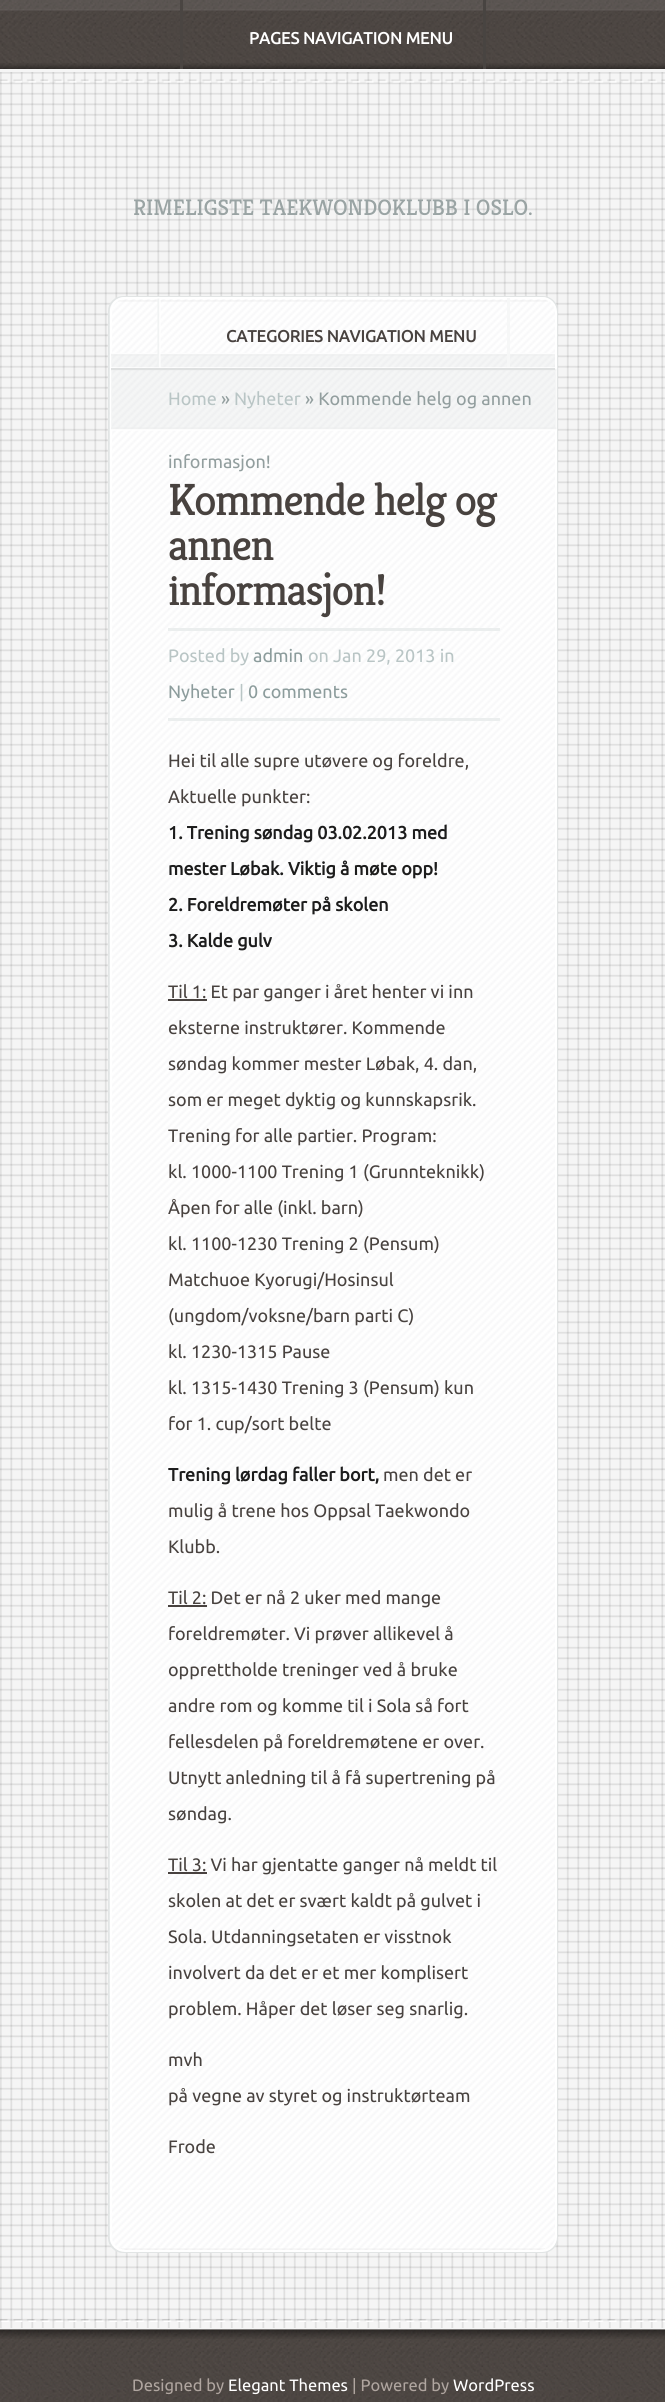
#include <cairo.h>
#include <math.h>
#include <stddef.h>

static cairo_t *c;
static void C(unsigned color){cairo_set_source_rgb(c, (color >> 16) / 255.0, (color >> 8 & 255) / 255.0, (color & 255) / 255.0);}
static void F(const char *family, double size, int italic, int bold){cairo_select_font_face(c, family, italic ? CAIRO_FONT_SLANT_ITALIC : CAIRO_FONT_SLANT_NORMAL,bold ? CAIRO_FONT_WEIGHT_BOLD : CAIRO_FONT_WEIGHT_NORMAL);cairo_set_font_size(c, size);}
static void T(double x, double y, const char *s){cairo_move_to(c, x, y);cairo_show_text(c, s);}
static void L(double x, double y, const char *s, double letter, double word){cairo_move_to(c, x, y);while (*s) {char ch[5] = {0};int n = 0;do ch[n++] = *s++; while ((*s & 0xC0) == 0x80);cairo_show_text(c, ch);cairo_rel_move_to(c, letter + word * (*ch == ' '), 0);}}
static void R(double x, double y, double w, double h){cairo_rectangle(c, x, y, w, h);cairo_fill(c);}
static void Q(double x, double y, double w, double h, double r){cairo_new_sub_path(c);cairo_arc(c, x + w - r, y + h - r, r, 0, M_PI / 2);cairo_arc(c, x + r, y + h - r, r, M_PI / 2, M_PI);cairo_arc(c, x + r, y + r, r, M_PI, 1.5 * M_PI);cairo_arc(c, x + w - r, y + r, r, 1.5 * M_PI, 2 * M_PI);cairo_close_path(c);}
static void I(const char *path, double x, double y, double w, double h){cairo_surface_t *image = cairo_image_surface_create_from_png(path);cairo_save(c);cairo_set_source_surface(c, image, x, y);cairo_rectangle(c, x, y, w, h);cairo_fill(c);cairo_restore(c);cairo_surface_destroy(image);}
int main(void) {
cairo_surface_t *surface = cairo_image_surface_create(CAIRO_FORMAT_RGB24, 665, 2402);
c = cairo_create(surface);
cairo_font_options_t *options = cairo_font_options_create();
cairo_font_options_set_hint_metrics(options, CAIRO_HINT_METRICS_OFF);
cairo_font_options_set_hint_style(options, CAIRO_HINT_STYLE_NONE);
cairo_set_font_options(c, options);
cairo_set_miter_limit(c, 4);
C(0xffffff);
cairo_paint(c);
I("1.png",0,0,665,2402);
I("2.png",0,0,665,11);
I("3.png",0,63,665,6);
C(0x4a4542);
R(180,0,3,69);
F("Ubuntu",16.5,0,1);
C(0xffffff);
T(249,44,"PAGES NAVIGATION MENU");
C(0x484441);
R(483,0,3,69);
C(0xf5f5f5);
R(0,69,665,2261);
I("4.png",0,72,665,2256);
I("5.png",0,79,665,4);
F("Kreon",22.5,0,0);
C(0x9aa4a4);
T(133,215,"RIMELIGSTE TAEKWONDOKLUBB I OSLO.");
Q(109,297,448,1955,14);
C(0xe2e5e5);
cairo_stroke(c);
I("6.png",109,297,447,1954);
Q(111,298,445,1953,14);
C(0xffffff);
cairo_stroke(c);
I("7.png",118,300,430,2);
I("8.png",121,2248,424,2);
I("9.png",111,353,444,15);
I("10.png",157,298,4,70);
F("Ubuntu",16.5,0,1);
C(0x48423f);
T(226,342,"CATEGORIES NAVIGATION MENU");
C(0xf6f7f7);
R(507,298,3,70);
I("11.png",111,367,446,64);
C(0xdee0e0);
R(111,368,444,2);
F("Ubuntu",18,0,0);
C(0xb9c5c5);
T(168,405,"Home");
C(0x929e9e);
T(221,405,"»");
C(0xb9c5c5);
T(234,405,"Nyheter");
C(0x929e9e);
T(305,405,"» Kommende helg og annen");
T(168,468,"informasjon!");
F("Kreon",45,0,0);
C(0x48423f);
L(168,515,"Kommende helg og",-1.5,0);
L(168,560,"annen",-1.5,0);
L(168,605,"informasjon!",-1.5,0);
C(0xebeeee);
R(168,628,332,3);
R(168,718,332,3);
F("Ubuntu",18,0,0);
C(0xb9c5c5);
T(168,662,"Posted by");
C(0x8c9c9c);
T(253,662,"admin");
C(0xb9c5c5);
T(308,662,"on Jan 29, 2013 in");
C(0x8c9c9c);
T(168,698,"Nyheter");
C(0xb9c5c5);
T(239,698,"|");
C(0x8c9c9c);
T(248,698,"0 comments");
C(0x48423f);
T(168,767,"Hei til alle supre utøvere og foreldre,");
T(168,803,"Aktuelle punkter:");
F("Ubuntu",18,0,1);
C(0x1c1c1c);
T(168,839,"1. Trening søndag 03.02.2013 med");
T(168,875,"mester Løbak. Viktig å møte opp!");
T(168,911,"2. Foreldremøter på skolen");
T(168,947,"3. Kalde gulv");
C(0x48423f);
R(168,999,39,2);
F("Ubuntu",18,0,0);
T(168,998,"Til 1: Et par ganger i året henter vi inn");
T(168,1034,"eksterne instruktører. Kommende");
T(168,1070,"søndag kommer mester Løbak, 4. dan,");
T(168,1106,"som er meget dyktig og kunnskapsrik.");
T(168,1142,"Trening for alle partier. Program:");
T(168,1178,"kl. 1000-1100 Trening 1 (Grunnteknikk)");
T(168,1214,"Åpen for alle (inkl. barn)");
T(168,1250,"kl. 1100-1230 Trening 2 (Pensum)");
T(168,1286,"Matchuoe Kyorugi/Hosinsul");
T(168,1322,"(ungdom/voksne/barn parti C)");
T(168,1358,"kl. 1230-1315 Pause");
T(168,1394,"kl. 1315-1430 Trening 3 (Pensum) kun");
T(168,1430,"for 1. cup/sort belte");
F("Ubuntu",18,0,1);
C(0x1c1c1c);
T(168,1481,"Trening lørdag faller bort,");
F("Ubuntu",18,0,0);
C(0x48423f);
T(383,1481,"men det er");
T(168,1517,"mulig å trene hos Oppsal Taekwondo");
T(168,1553,"Klubb.");
R(168,1605,39,2);
T(168,1604,"Til 2: Det er nå 2 uker med mange");
T(168,1640,"foreldremøter. Vi prøver allikevel å");
T(168,1676,"opprettholde treninger ved å bruke");
T(168,1712,"andre rom og komme til i Sola så fort");
T(168,1748,"fellesdelen på foreldremøtene er over.");
T(168,1784,"Utnytt anledning til å få supertrening på");
T(168,1820,"søndag.");
R(168,1872,39,2);
T(168,1871,"Til 3: Vi har gjentatte ganger nå meldt til");
T(168,1907,"skolen at det er svært kaldt på gulvet i");
T(168,1943,"Sola. Utdanningsetaten er visstnok");
T(168,1979,"involvert da det er et mer komplisert");
T(168,2015,"problem. Håper det løser seg snarlig.");
T(168,2066,"mvh");
T(168,2102,"på vegne av styret og instruktørteam");
T(168,2153,"Frode");
I("12.png",0,2319,665,3);
I("13.png",0,2329,665,72);
I("14.png",0,2329,665,10);
F("Ubuntu",16.5,0,0);
C(0xafa59f);
T(132,2391,"Designed by");
C(0xffffff);
T(228,2391,"Elegant Themes");
C(0xafa59f);
T(352,2391,"| Powered by");
C(0xffffff);
T(453,2391,"WordPress");
cairo_surface_write_to_png(surface, "o.png");
cairo_font_options_destroy(options);
cairo_destroy(c);
cairo_surface_destroy(surface);
return 0;
}
